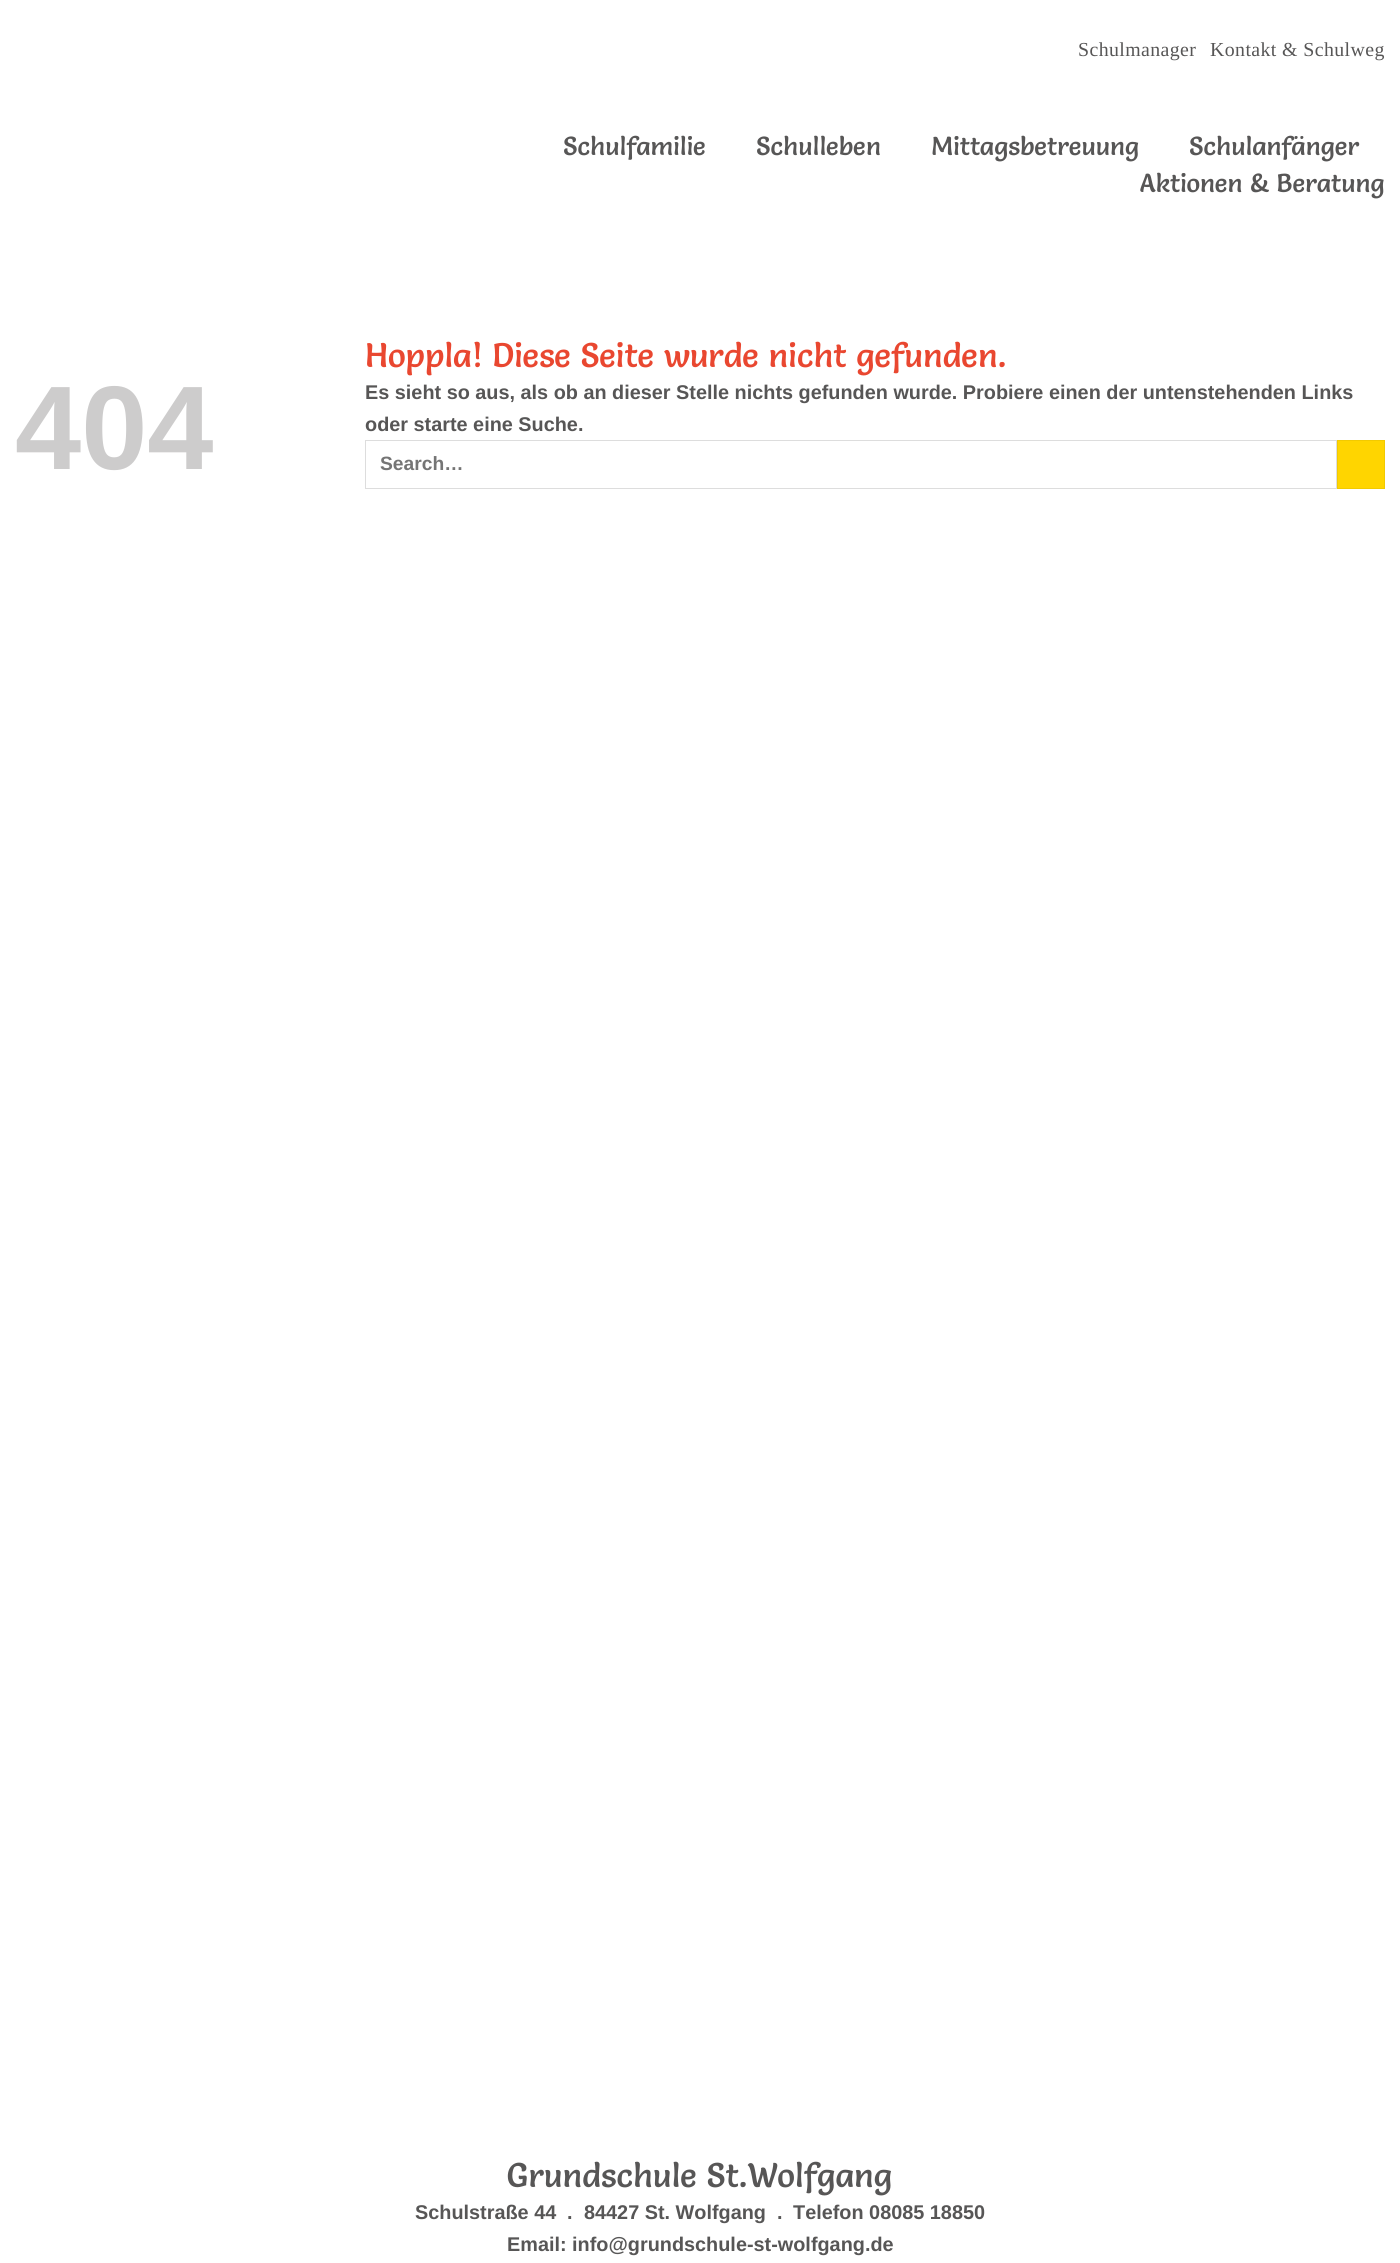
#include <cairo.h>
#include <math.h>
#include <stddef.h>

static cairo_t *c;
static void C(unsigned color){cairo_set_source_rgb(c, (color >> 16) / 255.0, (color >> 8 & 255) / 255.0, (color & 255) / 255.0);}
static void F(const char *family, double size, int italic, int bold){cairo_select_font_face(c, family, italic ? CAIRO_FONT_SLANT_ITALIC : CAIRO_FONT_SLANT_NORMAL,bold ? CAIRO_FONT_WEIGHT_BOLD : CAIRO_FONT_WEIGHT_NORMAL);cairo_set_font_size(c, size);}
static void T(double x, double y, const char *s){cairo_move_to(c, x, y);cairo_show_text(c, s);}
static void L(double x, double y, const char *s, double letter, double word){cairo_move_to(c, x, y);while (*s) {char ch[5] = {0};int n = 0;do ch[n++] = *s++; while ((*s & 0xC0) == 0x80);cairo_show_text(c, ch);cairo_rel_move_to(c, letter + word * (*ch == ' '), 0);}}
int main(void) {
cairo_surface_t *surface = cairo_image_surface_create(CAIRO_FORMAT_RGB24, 1400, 2263);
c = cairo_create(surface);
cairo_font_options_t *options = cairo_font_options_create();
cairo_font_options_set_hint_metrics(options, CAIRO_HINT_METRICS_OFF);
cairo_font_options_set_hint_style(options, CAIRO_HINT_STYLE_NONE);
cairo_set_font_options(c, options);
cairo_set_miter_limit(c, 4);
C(0xffffff);
cairo_paint(c);
F("Liberation Serif",19.85,0,0);
C(0x575656);
L(1078,56,"Schulmanager",.4,0);
L(1210,56,"Kontakt & Schulweg",.4,0);
F("Salsa",25.75,0,0);
T(563,155,"Schulfamilie");
T(756,155,"Schulleben");
T(931,155,"Mittagsbetreuung");
T(1189,155,"Schulanfänger");
T(1140,192,"Aktionen & Beratung");
F("Liberation Sans",119,0,1);
C(0xcdcccc);
T(15,469,"404");
F("Salsa",33.75,0,0);
C(0xe94730);
T(365,367,"Hoppla! Diese Seite wurde nicht gefunden.");
F("Liberation Sans",19.85,0,1);
C(0x575656);
T(365,399,"Es sieht so aus, als ob an dieser Stelle nichts gefunden wurde. Probiere einen der untenstehenden Links");
T(365,431,"oder starte eine Suche.");
cairo_rectangle(c,365.5,440.5,971,48);
C(0xdddddd);
cairo_set_line_width(c,1);
cairo_stroke(c);
F("Liberation Sans",19.25,0,1);
C(0x757575);
T(380,470,"Search…");
C(0xffd500);
cairo_rectangle(c,1337.5,440.5,47,48);
cairo_fill_preserve(c);
C(0xf2ca00);
cairo_stroke(c);
F("Salsa",33.75,0,0);
C(0x575656);
T(507,2187,"Grundschule St.Wolfgang");
F("Liberation Sans",19.85,0,1);
T(415,2219,"Schulstraße 44");
T(567,2219,".");
T(584,2219,"84427 St. Wolfgang");
T(777,2219,".");
T(793,2219,"Telefon 08085 18850");
T(507,2251,"Email: info@grundschule-st-wolfgang.de");
cairo_surface_write_to_png(surface, "o.png");
cairo_font_options_destroy(options);
cairo_destroy(c);
cairo_surface_destroy(surface);
return 0;
}
